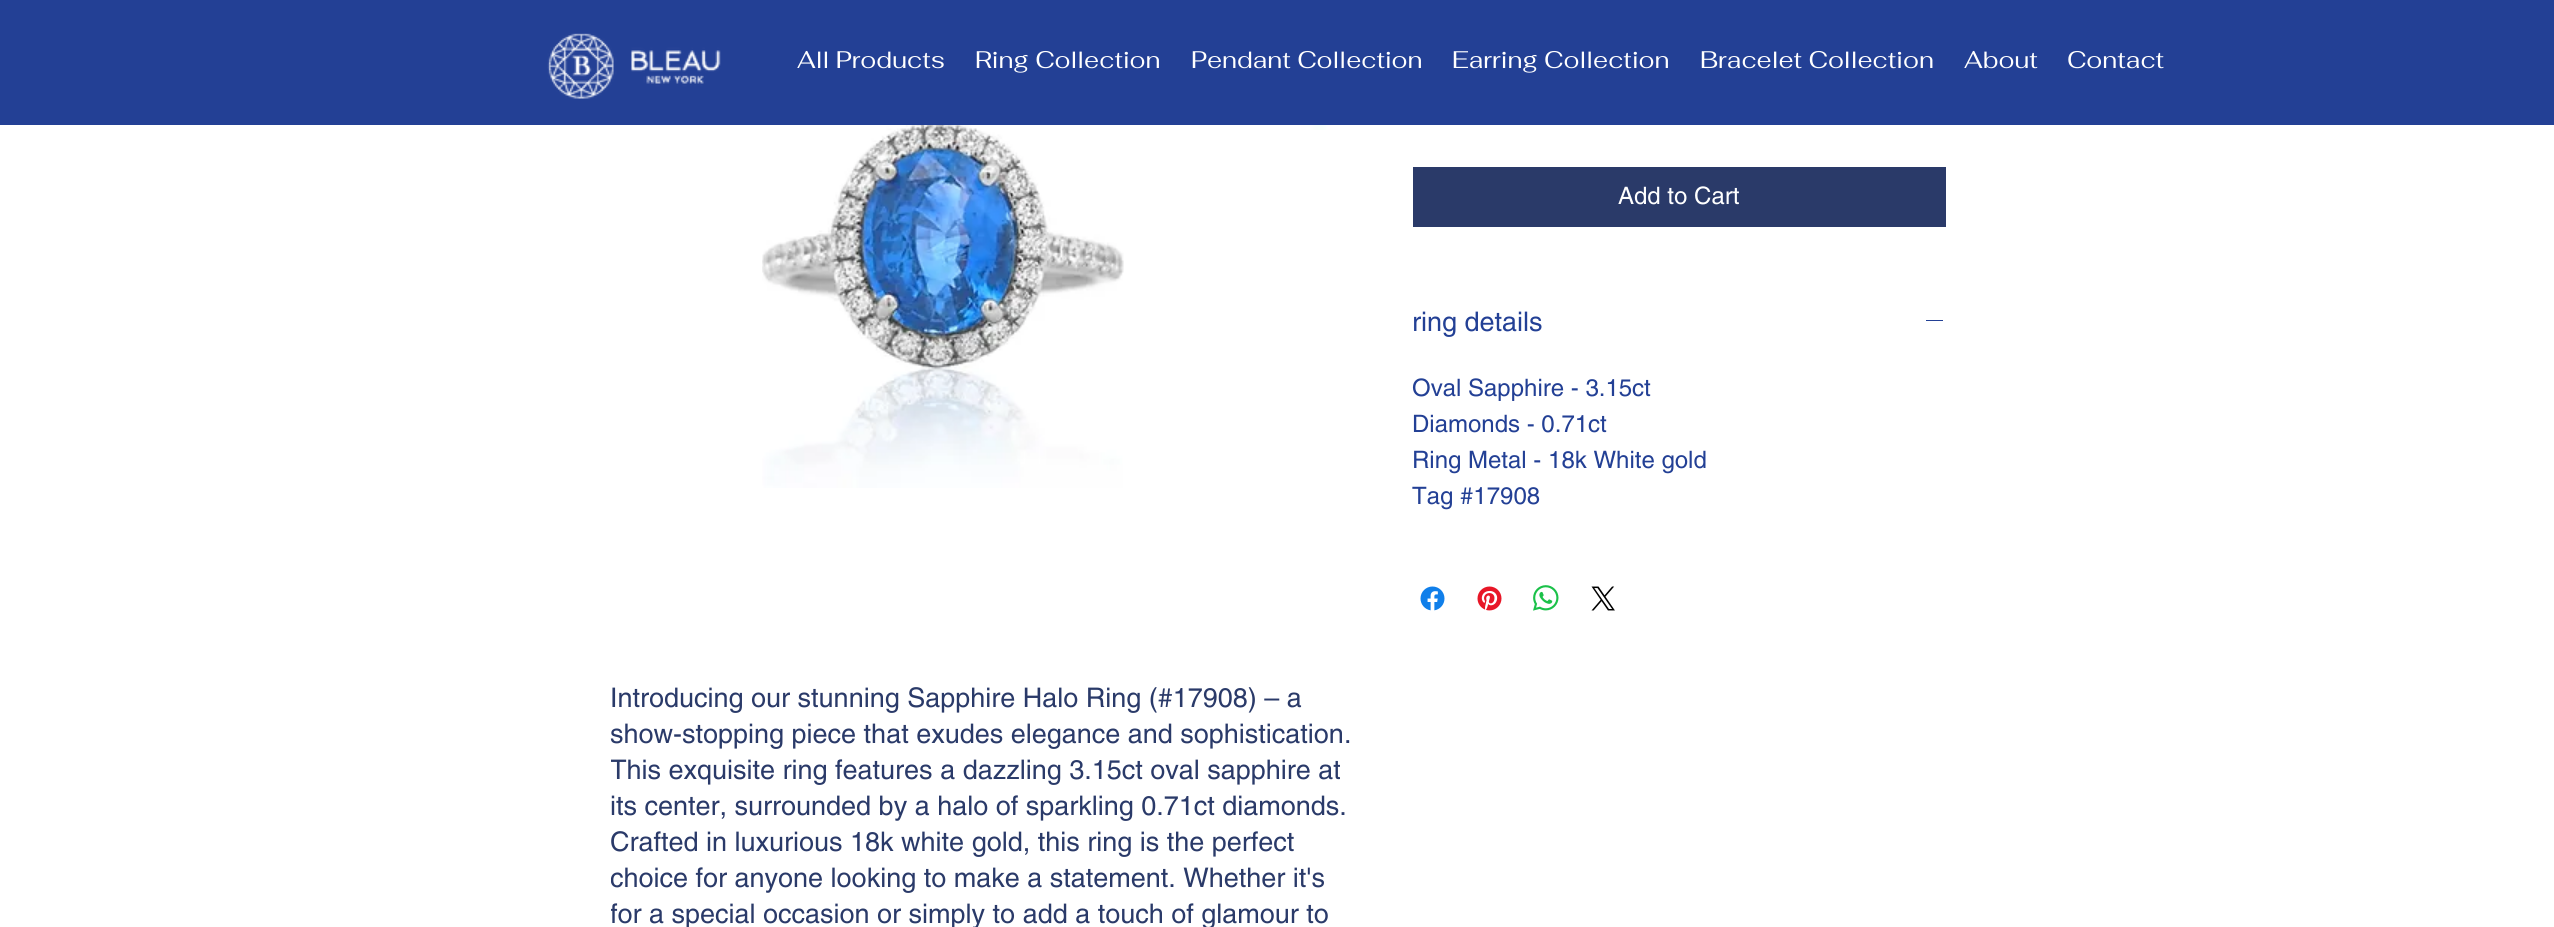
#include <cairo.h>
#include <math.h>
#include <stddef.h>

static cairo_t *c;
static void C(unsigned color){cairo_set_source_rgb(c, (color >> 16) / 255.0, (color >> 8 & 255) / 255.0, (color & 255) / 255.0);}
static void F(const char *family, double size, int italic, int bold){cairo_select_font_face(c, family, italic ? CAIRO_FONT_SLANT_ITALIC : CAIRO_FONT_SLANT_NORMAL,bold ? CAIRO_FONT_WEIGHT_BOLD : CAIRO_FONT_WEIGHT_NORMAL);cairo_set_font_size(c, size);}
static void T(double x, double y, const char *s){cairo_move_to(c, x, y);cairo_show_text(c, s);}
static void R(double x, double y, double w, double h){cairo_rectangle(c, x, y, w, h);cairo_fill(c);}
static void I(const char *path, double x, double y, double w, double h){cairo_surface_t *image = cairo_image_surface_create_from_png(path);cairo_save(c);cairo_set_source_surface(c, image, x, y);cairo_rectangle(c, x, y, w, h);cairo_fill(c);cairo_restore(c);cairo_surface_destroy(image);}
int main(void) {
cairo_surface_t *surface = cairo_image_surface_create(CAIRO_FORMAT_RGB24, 2554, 927);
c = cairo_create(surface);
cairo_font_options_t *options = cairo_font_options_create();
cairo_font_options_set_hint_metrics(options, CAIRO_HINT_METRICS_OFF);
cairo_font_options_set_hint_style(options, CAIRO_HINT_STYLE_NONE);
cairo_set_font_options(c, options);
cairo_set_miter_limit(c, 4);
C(0xffffff);
cairo_paint(c);
C(0x234095);
R(0,0,2554,125);
I("1.png",547,33,174,66);
F("Fahkwang",24,0,0);
C(0xffffff);
T(797,68,"All Products");
T(975,68,"Ring Collection");
T(1191,68,"Pendant Collection");
T(1452,68,"Earring Collection");
T(1700,68,"Bracelet Collection");
T(1964,68,"About");
T(2067,68,"Contact");
C(0x2a3a69);
R(1413,167,533,60);
F("helvetica",24,0,0);
C(0xffffff);
T(1618,204,"Add to Cart");
F("helvetica",27,0,0);
C(0x234095);
T(1412,331,"ring details");
R(1926,320,17,1);
F("helvetica",24,0,0);
T(1412,396,"Oval Sapphire - 3.15ct");
T(1412,432,"Diamonds - 0.71ct");
T(1412,468,"Ring Metal - 18k White gold");
T(1412,504,"Tag #17908");
I("2.png",1420,586,25,25);
I("3.png",1477,586,25,25);
I("4.png",1533,585,26,26);
I("5.png",1591,586,24,25);
I("6.png",762,125,362,363);
I("7.png",1301,125,37,5);
F("helvetica",27,0,0);
C(0x2a3a69);
T(610,707,"Introducing our stunning Sapphire Halo Ring (#17908) – a");
T(610,743,"show-stopping piece that exudes elegance and sophistication.");
cairo_save(c);
cairo_rectangle(c,611,680,750,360);
cairo_clip(c);
T(610,779,"This exquisite ring features a dazzling 3.15ct oval sapphire at");
cairo_restore(c);
T(610,815,"its center, surrounded by a halo of sparkling 0.71ct diamonds.");
T(610,851,"Crafted in luxurious 18k white gold, this ring is the perfect");
cairo_save(c);
cairo_rectangle(c,611,680,750,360);
cairo_clip(c);
T(610,887,"choice for anyone looking to make a statement. Whether it's");
T(610,923,"for a special occasion or simply to add a touch of glamour to");
cairo_restore(c);
cairo_surface_write_to_png(surface, "o.png");
cairo_font_options_destroy(options);
cairo_destroy(c);
cairo_surface_destroy(surface);
return 0;
}
